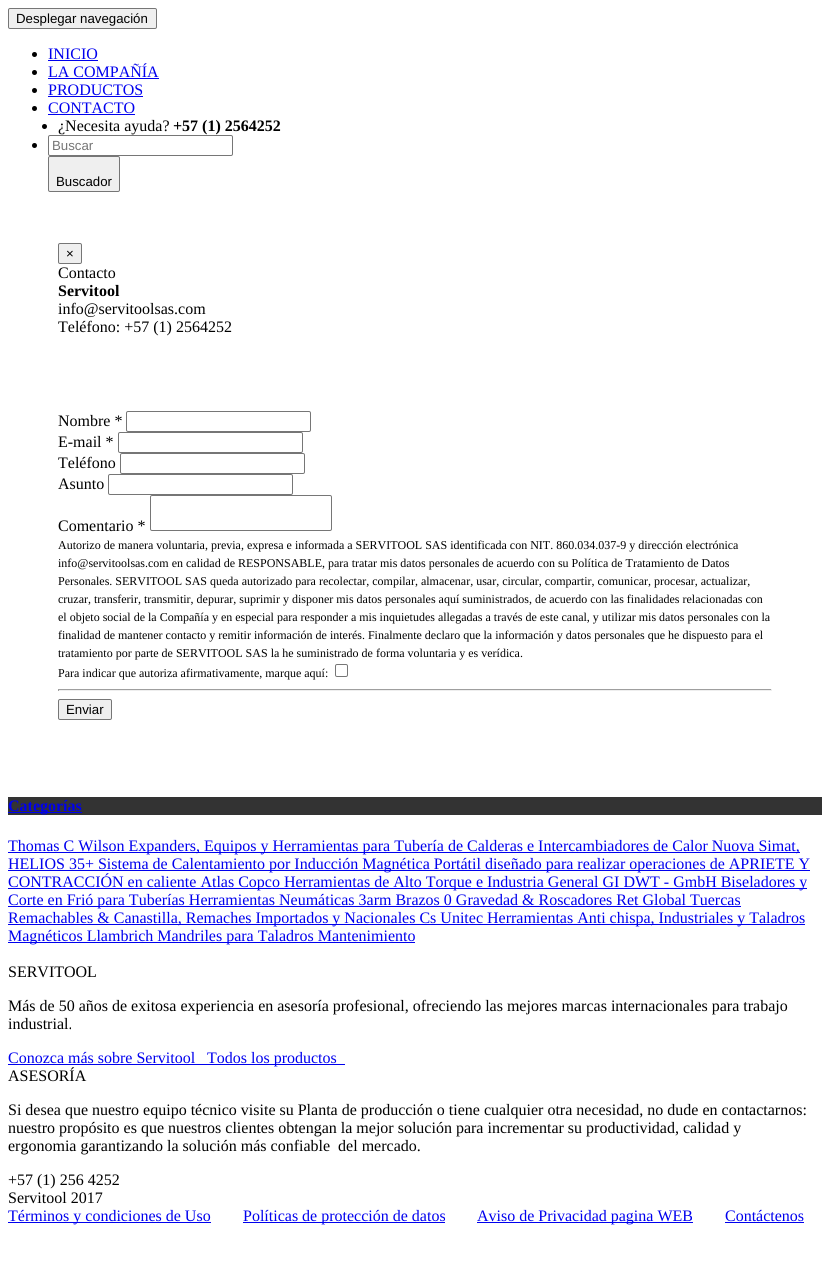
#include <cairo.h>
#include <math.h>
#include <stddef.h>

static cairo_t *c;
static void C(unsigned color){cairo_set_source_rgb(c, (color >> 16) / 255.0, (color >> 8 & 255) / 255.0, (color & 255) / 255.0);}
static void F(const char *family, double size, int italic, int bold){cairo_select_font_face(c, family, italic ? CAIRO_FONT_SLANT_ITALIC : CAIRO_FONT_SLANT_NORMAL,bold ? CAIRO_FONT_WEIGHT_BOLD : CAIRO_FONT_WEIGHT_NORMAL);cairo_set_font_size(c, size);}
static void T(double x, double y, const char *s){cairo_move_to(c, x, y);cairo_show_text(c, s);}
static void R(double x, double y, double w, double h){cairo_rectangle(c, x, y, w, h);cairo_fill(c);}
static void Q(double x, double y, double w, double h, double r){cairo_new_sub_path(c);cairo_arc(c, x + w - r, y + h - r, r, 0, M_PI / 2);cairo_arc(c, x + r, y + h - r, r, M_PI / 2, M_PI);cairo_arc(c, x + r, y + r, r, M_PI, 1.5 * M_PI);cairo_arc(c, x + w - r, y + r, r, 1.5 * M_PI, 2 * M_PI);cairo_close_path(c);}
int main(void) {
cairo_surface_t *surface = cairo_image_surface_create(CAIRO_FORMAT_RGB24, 830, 1279);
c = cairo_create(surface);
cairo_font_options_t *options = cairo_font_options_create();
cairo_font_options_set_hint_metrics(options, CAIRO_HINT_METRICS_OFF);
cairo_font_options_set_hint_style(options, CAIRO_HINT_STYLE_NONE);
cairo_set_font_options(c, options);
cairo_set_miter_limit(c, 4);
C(0xffffff);
cairo_paint(c);
C(0xefefef);
Q(8.5,8.5,148,20,1.5);
cairo_fill_preserve(c);
C(0x767676);
cairo_set_line_width(c,1);
cairo_stroke(c);
F("Liberation Sans",13.25,0,0);
C(0x000000);
T(16,23,"Desplegar navegación");
cairo_new_path(c);
cairo_arc(c,34.5,54.5,2.5,0,2 * M_PI);
cairo_fill(c);
F("Liberation Serif",16,0,0);
C(0x0000ee);
T(48,59,"INICIO");
R(48,60,50,1);
C(0x000000);
cairo_new_path(c);
cairo_arc(c,34.5,72.5,2.5,0,2 * M_PI);
cairo_fill(c);
C(0x0000ee);
T(48,77,"LA COMPAÑÍA");
R(48,78,111,1);
C(0x000000);
cairo_new_path(c);
cairo_arc(c,34.5,90.5,2.5,0,2 * M_PI);
cairo_fill(c);
C(0x0000ee);
T(48,95,"PRODUCTOS");
R(48,96,95,1);
C(0x000000);
cairo_new_path(c);
cairo_arc(c,34.5,108.5,2.5,0,2 * M_PI);
cairo_fill(c);
C(0x0000ee);
T(48,113,"CONTACTO");
R(48,114,87,1);
C(0x000000);
cairo_new_path(c);
cairo_arc(c,44.5,126.5,2.5,0,2 * M_PI);
cairo_fill(c);
T(58,131,"¿Necesita ayuda?");
F("Liberation Serif",16,0,1);
T(173,131,"+57 (1) 2564252");
cairo_new_path(c);
cairo_arc(c,34.5,145.5,2.5,0,2 * M_PI);
cairo_fill(c);
Q(48.5,135.5,184,20,1.5);
C(0x767676);
cairo_stroke(c);
F("Liberation Sans",13.25,0,0);
C(0x757575);
T(52,150,"Buscar");
C(0xefefef);
Q(48.5,156.5,71,35,1.5);
cairo_fill_preserve(c);
C(0x767676);
cairo_stroke(c);
C(0x000000);
T(56,186,"Buscador");
C(0xefefef);
Q(58.5,243.5,23,20,1.5);
cairo_fill_preserve(c);
C(0x767676);
cairo_stroke(c);
C(0x000000);
T(66,258,"×");
F("Liberation Serif",16,0,0);
T(58,278,"Contacto");
F("Liberation Serif",16,0,1);
T(58,296,"Servitool");
F("Liberation Serif",16,0,0);
T(58,314,"info@servitoolsas.com");
T(58,332,"Teléfono: +57 (1) 2564252");
T(58,426,"Nombre *");
Q(126.5,411.5,184,20,1.5);
C(0x767676);
cairo_stroke(c);
C(0x000000);
T(58,447,"E-mail *");
Q(118.5,432.5,184,20,1.5);
C(0x767676);
cairo_stroke(c);
C(0x000000);
T(58,468,"Teléfono");
Q(120.5,453.5,184,20,1.5);
C(0x767676);
cairo_stroke(c);
C(0x000000);
T(58,489,"Asunto");
Q(108.5,474.5,184,20,1.5);
C(0x767676);
cairo_stroke(c);
C(0x000000);
T(58,531,"Comentario *");
Q(150.5,495.5,181,35,1.5);
C(0x767676);
cairo_stroke(c);
F("Liberation Serif",12,0,0);
C(0x000000);
T(58,549,"Autorizo de manera voluntaria, previa, expresa e informada a SERVITOOL SAS identificada con NIT. 860.034.037-9 y dirección electrónica");
T(58,567,"info@servitoolsas.com en calidad de RESPONSABLE, para tratar mis datos personales de acuerdo con su Política de Tratamiento de Datos");
T(58,585,"Personales. SERVITOOL SAS queda autorizado para recolectar, compilar, almacenar, usar, circular, compartir, comunicar, procesar, actualizar,");
T(58,603,"cruzar, transferir, transmitir, depurar, suprimir y disponer mis datos personales aquí suministrados, de acuerdo con las finalidades relacionadas con");
T(58,621,"el objeto social de la Compañía y en especial para responder a mis inquietudes allegadas a través de este canal, y utilizar mis datos personales con la");
T(58,639,"finalidad de mantener contacto y remitir información de interés. Finalmente declaro que la información y datos personales que he dispuesto para el");
T(58,657,"tratamiento por parte de SERVITOOL SAS la he suministrado de forma voluntaria y es verídica.");
T(58,677,"Para indicar que autoriza afirmativamente, marque aquí:");
Q(335.5,664.5,12,12,1.5);
C(0x767676);
cairo_stroke(c);
C(0x9f9f9f);
R(58,689,714,1);
C(0xeeeeee);
R(771,689,1,2);
R(58,690,714,1);
C(0x9f9f9f);
R(58,689,1,2);
C(0xefefef);
Q(58.5,699.5,53,20,1.5);
cairo_fill_preserve(c);
C(0x767676);
cairo_stroke(c);
F("Liberation Sans",13.25,0,0);
C(0x000000);
T(66,714,"Enviar");
C(0x333333);
R(8,797,814,18);
C(0x0000ee);
R(8,812,74,1);
F("Liberation Serif",16,0,1);
T(8,811,"Categorías");
R(8,852,792,1);
F("Liberation Serif",16,0,0);
T(8,851,"Thomas C Wilson Expanders, Equipos y Herramientas para Tubería de Calderas e Intercambiadores de Calor Nuova Simat,");
R(8,870,802,1);
T(8,869,"HELIOS 35+ Sistema de Calentamiento por Inducción Magnética Portátil diseñado para realizar operaciones de APRIETE Y");
R(8,888,799,1);
T(8,887,"CONTRACCIÓN en caliente Atlas Copco Herramientas de Alto Torque e Industria General GI DWT - GmbH Biseladores y");
R(8,906,733,1);
T(8,905,"Corte en Frió para Tuberías Herramientas Neumáticas 3arm Brazos 0 Gravedad & Roscadores Ret Global Tuercas");
R(8,924,797,1);
T(8,923,"Remachables & Canastilla, Remaches Importados y Nacionales Cs Unitec Herramientas Anti chispa, Industriales y Taladros");
R(8,942,407,1);
T(8,941,"Magnéticos Llambrich Mandriles para Taladros Mantenimiento");
C(0x000000);
T(8,977,"SERVITOOL");
T(8,1011,"Más de 50 años de exitosa experiencia en asesoría profesional, ofreciendo las mejores marcas internacionales para trabajo");
T(8,1029,"industrial.");
C(0x0000ee);
T(8,1063,"Conozca más sobre Servitool");
R(8,1064,337,1);
T(207,1063,"Todos los productos");
C(0x000000);
T(8,1081,"ASESORÍA");
T(8,1115,"Si desea que nuestro equipo técnico visite su Planta de producción o tiene cualquier otra necesidad, no dude en contactarnos:");
T(8,1133,"nuestro propósito es que nuestros clientes obtengan la mejor solución para incrementar su productividad, calidad y");
T(8,1151,"ergonomia garantizando la solución más confiable  del mercado.");
T(8,1185,"+57 (1) 256 4252");
T(8,1203,"Servitool 2017");
C(0x0000ee);
R(8,1222,203,1);
T(8,1221,"Términos y condiciones de Uso");
R(243,1222,202,1);
T(243,1221,"Políticas de protección de datos");
R(477,1222,216,1);
T(477,1221,"Aviso de Privacidad pagina WEB");
T(725,1221,"Contáctenos");
R(725,1222,79,1);
cairo_surface_write_to_png(surface, "o.png");
cairo_font_options_destroy(options);
cairo_destroy(c);
cairo_surface_destroy(surface);
return 0;
}
